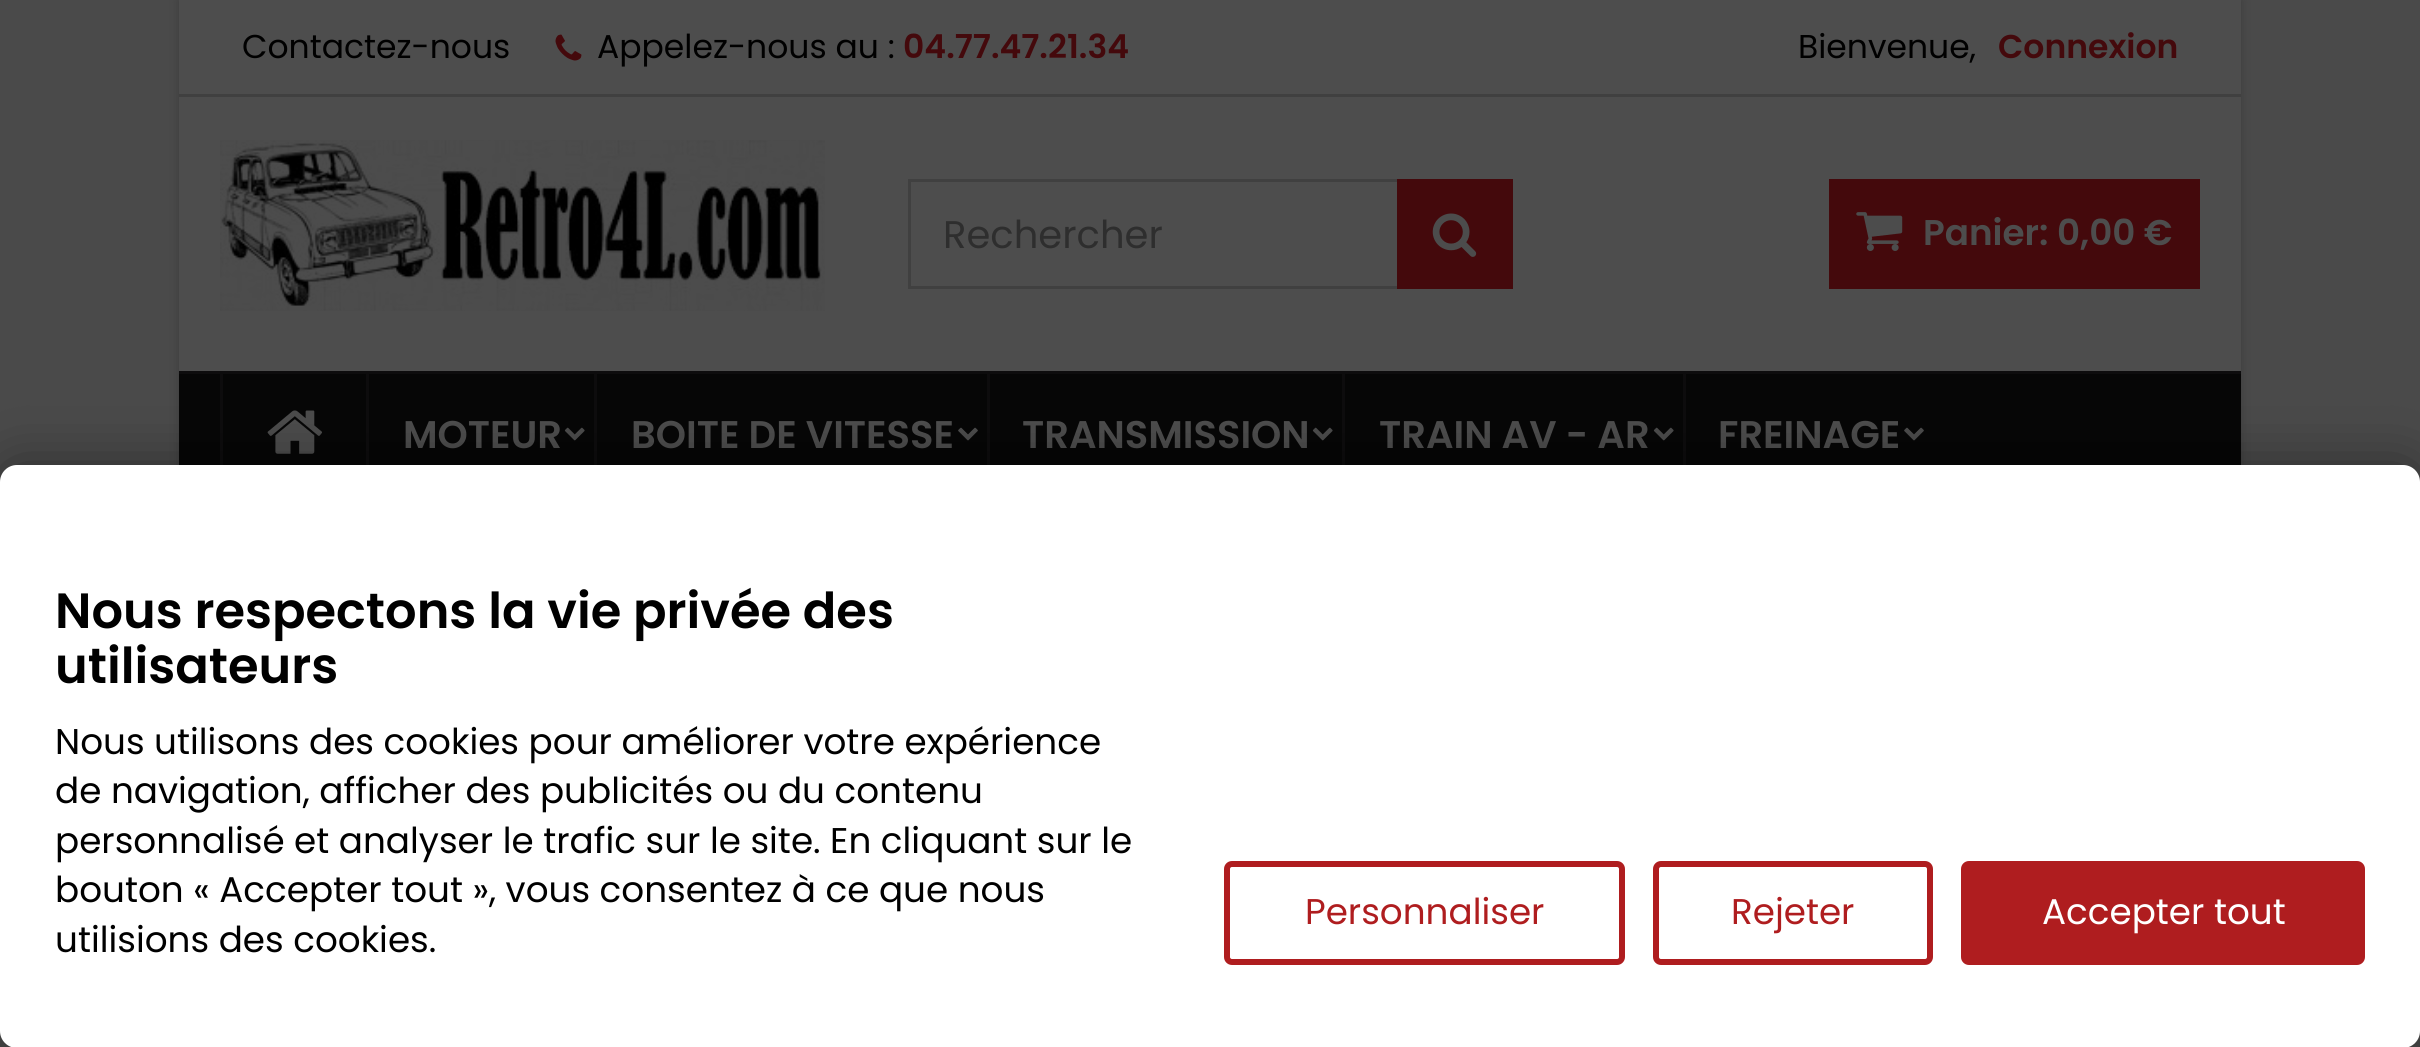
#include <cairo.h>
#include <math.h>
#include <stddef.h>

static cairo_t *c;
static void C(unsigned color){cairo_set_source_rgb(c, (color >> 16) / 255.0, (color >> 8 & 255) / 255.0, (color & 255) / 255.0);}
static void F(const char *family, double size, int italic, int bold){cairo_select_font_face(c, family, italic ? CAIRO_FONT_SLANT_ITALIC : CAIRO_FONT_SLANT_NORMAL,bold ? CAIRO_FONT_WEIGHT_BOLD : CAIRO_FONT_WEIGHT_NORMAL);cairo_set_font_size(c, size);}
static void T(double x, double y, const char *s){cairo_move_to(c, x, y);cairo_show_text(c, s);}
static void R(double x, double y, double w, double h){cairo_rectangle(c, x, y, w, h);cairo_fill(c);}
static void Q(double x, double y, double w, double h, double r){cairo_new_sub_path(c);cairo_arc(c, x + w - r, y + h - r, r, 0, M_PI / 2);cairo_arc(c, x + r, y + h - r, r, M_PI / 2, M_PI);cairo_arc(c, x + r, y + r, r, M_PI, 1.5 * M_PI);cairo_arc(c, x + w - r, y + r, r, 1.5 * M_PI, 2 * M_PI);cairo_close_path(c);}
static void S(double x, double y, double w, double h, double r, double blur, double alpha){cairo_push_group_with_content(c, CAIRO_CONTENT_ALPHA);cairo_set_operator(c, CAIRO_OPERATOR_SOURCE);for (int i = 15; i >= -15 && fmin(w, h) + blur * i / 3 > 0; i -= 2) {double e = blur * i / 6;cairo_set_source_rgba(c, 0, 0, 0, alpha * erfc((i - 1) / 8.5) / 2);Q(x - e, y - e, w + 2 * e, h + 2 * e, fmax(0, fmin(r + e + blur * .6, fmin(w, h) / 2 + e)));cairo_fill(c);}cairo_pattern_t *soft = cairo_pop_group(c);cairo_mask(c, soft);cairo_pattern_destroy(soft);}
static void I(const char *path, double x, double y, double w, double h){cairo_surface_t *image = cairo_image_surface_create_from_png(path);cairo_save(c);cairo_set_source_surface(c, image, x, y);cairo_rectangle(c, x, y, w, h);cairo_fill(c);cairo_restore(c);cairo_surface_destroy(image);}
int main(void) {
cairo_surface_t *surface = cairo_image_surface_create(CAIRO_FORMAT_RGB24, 2420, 1047);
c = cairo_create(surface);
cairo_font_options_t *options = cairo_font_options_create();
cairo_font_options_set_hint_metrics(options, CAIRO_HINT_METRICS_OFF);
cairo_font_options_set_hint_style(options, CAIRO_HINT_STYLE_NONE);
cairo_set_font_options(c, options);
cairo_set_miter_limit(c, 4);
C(0x4a4a4a);
cairo_paint(c);
C(0x000000);
S(179,0,2062,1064,0,5.5,.2);
C(0x4d4d4d);
R(179,0,2062,371);
C(0x404040);
R(179,94,2062,3);
F("Poppins",33,0,0);
C(0x000000);
T(242,58,"Contactez-nous");
I("1.png",555,34,27,27);
T(597,58,"Appelez-nous au :");
F("Poppins SemiBold",33,0,0);
C(0x44090c);
T(903,58,"04.77.47.21.34");
F("Poppins",33,0,0);
C(0x000000);
T(1798,58,"Bienvenue,");
F("Poppins SemiBold",33,0,0);
C(0x44090c);
T(1998,58,"Connexion");
I("2.png",220,140,605,171);
cairo_rectangle(c,909.5,180.5,602,107);
C(0x404040);
cairo_set_line_width(c,3);
cairo_stroke(c);
F("Poppins",38.5,0,0);
C(0x2e2e2e);
T(943,248,"Rechercher");
C(0x44090c);
R(1397,179,116,110);
I("3.png",1432,213,45,44);
R(1829,179,371,110);
I("4.png",1856,212,47,39);
F("Poppins SemiBold",35.75,0,0);
C(0x4d4d4d);
T(1923,245,"Panier: 0,00 €");
C(0x060606);
R(179,374,2062,91);
C(0x0d0c0d);
R(179,371,2062,3);
R(220,374,3,91);
I("5.png",267,410,55,44);
R(366,374,3,91);
F("Poppins SemiBold",38.5,0,0);
C(0x4d4d4d);
T(403,448,"MOTEUR");
I("6.png",564,427,21,14);
C(0x0d0c0d);
R(594,374,3,91);
C(0x4d4d4d);
T(631,448,"BOITE DE VITESSE");
I("7.png",958,427,20,14);
C(0x0d0c0d);
R(987,374,3,91);
C(0x4d4d4d);
T(1022,448,"TRANSMISSION");
I("6.png",1312,427,21,14);
C(0x0d0c0d);
R(1342,374,3,91);
C(0x4d4d4d);
T(1379,448,"TRAIN AV - AR");
I("6.png",1653,427,21,14);
C(0x0d0c0d);
R(1683,374,3,91);
C(0x4d4d4d);
T(1718,448,"FREINAGE");
I("7.png",1904,427,20,14);
C(0x000000);
S(0,465,2420,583,17,27.5,.4);
C(0xffffff);
Q(0,465,2420,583,17);
cairo_fill(c);
F("Poppins SemiBold",49.5,0,0);
C(0x000000);
T(55,628,"Nous respectons la vie privée des");
T(55,683,"utilisateurs");
F("Poppins",35.75,0,0);
T(55,754,"Nous utilisons des cookies pour améliorer votre expérience");
T(55,803,"de navigation, afficher des publicités ou du contenu");
T(55,853,"personnalisé et analyser le trafic sur le site. En cliquant sur le");
T(55,902,"bouton « Accepter tout », vous consentez à ce que nous");
T(55,952,"utilisions des cookies.");
Q(1227,864,395,98,5);
C(0xaf1d1f);
cairo_set_line_width(c,6);
cairo_stroke(c);
T(1305,924,"Personnaliser");
Q(1656,864,274,98,5);
cairo_stroke(c);
T(1731,924,"Rejeter");
Q(1964,864,398,98,5);
cairo_fill_preserve(c);
cairo_stroke(c);
C(0xffffff);
T(2042,924,"Accepter tout");
cairo_surface_write_to_png(surface, "o.png");
cairo_font_options_destroy(options);
cairo_destroy(c);
cairo_surface_destroy(surface);
return 0;
}
